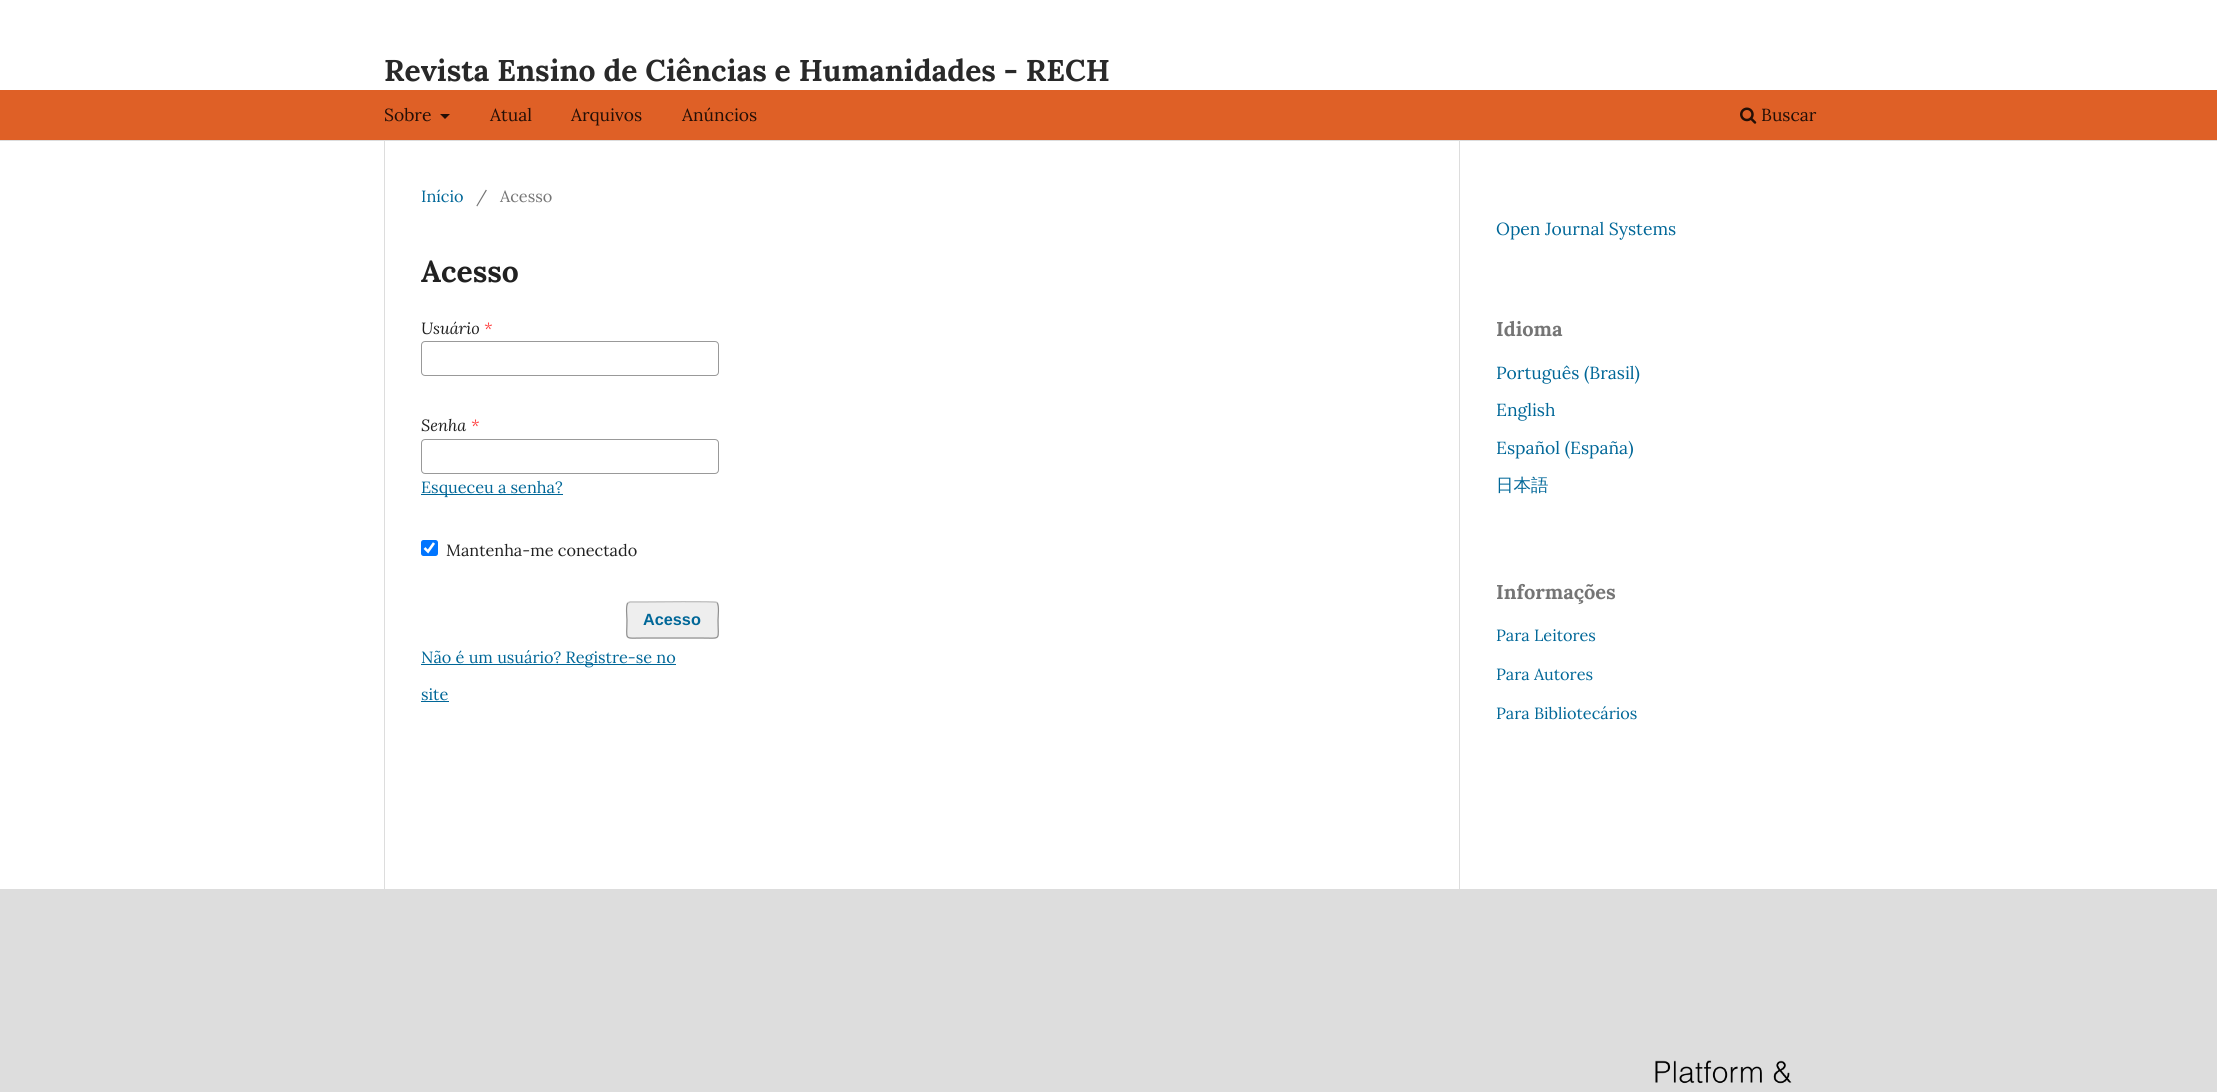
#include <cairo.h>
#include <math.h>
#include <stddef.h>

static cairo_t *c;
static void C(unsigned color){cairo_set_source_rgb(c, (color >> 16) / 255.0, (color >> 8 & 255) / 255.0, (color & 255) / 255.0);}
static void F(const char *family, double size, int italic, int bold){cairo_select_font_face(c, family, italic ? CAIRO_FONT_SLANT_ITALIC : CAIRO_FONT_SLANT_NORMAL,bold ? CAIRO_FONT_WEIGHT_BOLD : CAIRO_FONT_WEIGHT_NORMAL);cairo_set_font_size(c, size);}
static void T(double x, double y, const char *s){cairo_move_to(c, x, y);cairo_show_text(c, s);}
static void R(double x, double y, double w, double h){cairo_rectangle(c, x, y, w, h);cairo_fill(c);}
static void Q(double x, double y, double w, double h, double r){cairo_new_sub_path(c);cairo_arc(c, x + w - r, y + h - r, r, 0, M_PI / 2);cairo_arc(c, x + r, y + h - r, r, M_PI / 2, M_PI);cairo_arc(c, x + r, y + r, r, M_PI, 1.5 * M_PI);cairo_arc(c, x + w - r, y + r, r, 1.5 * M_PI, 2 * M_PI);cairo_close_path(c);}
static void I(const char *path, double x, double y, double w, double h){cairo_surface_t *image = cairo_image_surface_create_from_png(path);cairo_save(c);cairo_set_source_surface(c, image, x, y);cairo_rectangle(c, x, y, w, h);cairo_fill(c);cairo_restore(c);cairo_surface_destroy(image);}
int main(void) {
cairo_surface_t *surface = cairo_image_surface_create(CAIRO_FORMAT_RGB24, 2217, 1092);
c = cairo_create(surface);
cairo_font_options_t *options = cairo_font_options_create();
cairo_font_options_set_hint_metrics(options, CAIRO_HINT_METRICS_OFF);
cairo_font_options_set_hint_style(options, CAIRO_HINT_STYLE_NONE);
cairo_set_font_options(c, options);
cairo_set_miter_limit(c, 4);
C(0xffffff);
cairo_paint(c);
C(0xdddddd);
R(0,140,2217,1);
F("Lora",30,0,1);
C(0x292929);
T(384,81,"Revista Ensino de Ciências e Humanidades - RECH");
C(0xdf6026);
R(0,90,2217,50);
F("Lora",17.5,0,0);
C(0x240f06);
T(384,121,"Sobre");
cairo_new_path(c);
cairo_move_to(c,440,114);
cairo_line_to(c,450,114);
cairo_line_to(c,445,119);
cairo_close_path(c);
cairo_fill(c);
T(490,121,"Atual");
T(571,121,"Arquivos");
T(682,121,"Anúncios");
I("1.png",1740,107,17,17);
T(1761,121,"Buscar");
C(0xdddddd);
R(384,141,1,748);
F("Lora",16.25,0,0);
C(0x006798);
T(421,202,"Início");
C(0x757575);
T(476,202,"/");
T(500,202,"Acesso");
F("Lora",30,0,1);
C(0x212121);
T(421,282,"Acesso");
F("Lora",16.25,1,0);
T(421,334,"Usuário");
C(0xff4040);
T(484,334,"*");
Q(421.5,341.5,297,34,3.5);
C(0x999999);
cairo_set_line_width(c,1);
cairo_stroke(c);
C(0x212121);
T(421,431,"Senha");
C(0xff4040);
T(471,431,"*");
Q(421.5,439.5,297,34,3.5);
C(0x999999);
cairo_stroke(c);
C(0x006798);
R(421,494,142,1);
F("Lora",16.25,0,0);
T(421,493,"Esqueceu a senha?");
C(0x0075ff);
Q(421,540,17,16,2.5);
cairo_fill(c);
cairo_new_path(c);
cairo_move_to(c,424.5,548);
cairo_line_to(c,428,551.5);
cairo_line_to(c,434,543);
C(0xffffff);
cairo_set_line_width(c,2.6);
cairo_stroke(c);
C(0x212121);
T(446,556,"Mantenha-me conectado");
C(0xeeeeee);
Q(626,601,93,38,4);
cairo_fill(c);
cairo_new_path(c);
cairo_move_to(c,628,603);
cairo_line_to(c,630,602);
cairo_line_to(c,644,602);
cairo_curve_to(c,652,602,715,601,717,602.5);
cairo_line_to(c,717,603);
C(0xbbbbbb);
cairo_set_line_width(c,1.2);
cairo_stroke(c);
cairo_new_path(c);
cairo_move_to(c,717,603);
cairo_curve_to(c,719.5,605,718,617,718,620);
cairo_curve_to(c,718,641,722,638,701,638);
cairo_line_to(c,644,638);
cairo_curve_to(c,623,638,627,641,627,620);
cairo_curve_to(c,627,617,625.5,605,628,603);
C(0x8f8f8f);
cairo_stroke(c);
F("Liberation Sans",16.25,0,1);
C(0x006798);
T(643,625,"Acesso");
R(421,664,255,1);
F("Lora",16.25,0,0);
T(421,663,"Não é um usuário? Registre-se no");
T(421,700,"site");
R(421,701,28,1);
C(0xdddddd);
R(1459,141,1,748);
F("Lora",17.5,0,0);
C(0x006798);
T(1496,235,"Open Journal Systems");
F("Lora",20,0,1);
C(0x757575);
T(1496,336,"Idioma");
F("Lora",17.5,0,0);
C(0x006798);
T(1496,379,"Português (Brasil)");
T(1496,416,"English");
T(1496,454,"Español (España)");
F("WenQuanYi Zen Hei Medium",17.5,0,0);
T(1496,491,"日本語");
F("Lora",20,0,1);
C(0x757575);
T(1496,599,"Informações");
F("Lora",16.25,0,0);
C(0x006798);
T(1496,641,"Para Leitores");
T(1496,680,"Para Autores");
T(1496,719,"Para Bibliotecários");
C(0xdddddd);
R(0,889,2217,203);
I("2.png",1655,1060,137,24);
cairo_surface_write_to_png(surface, "o.png");
cairo_font_options_destroy(options);
cairo_destroy(c);
cairo_surface_destroy(surface);
return 0;
}
